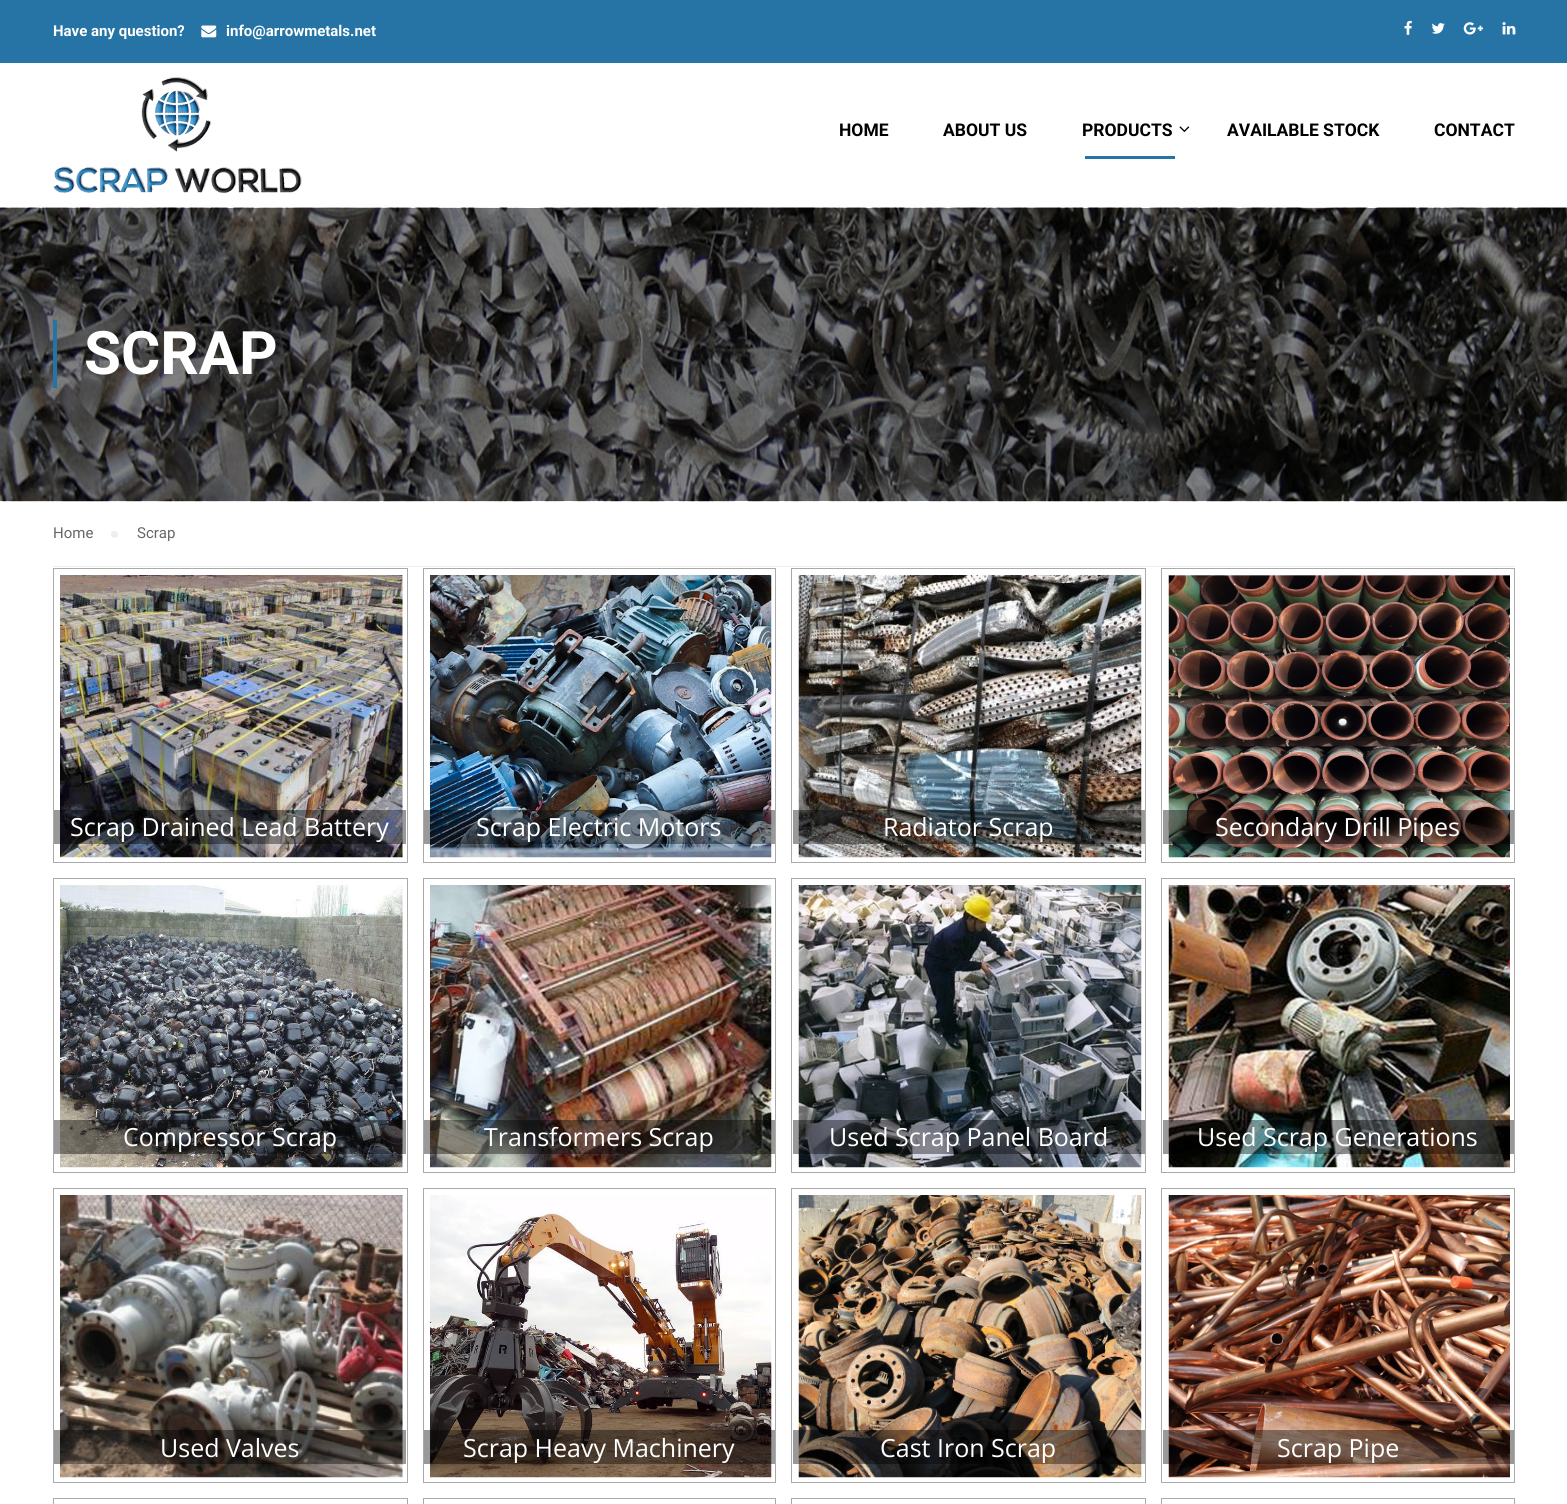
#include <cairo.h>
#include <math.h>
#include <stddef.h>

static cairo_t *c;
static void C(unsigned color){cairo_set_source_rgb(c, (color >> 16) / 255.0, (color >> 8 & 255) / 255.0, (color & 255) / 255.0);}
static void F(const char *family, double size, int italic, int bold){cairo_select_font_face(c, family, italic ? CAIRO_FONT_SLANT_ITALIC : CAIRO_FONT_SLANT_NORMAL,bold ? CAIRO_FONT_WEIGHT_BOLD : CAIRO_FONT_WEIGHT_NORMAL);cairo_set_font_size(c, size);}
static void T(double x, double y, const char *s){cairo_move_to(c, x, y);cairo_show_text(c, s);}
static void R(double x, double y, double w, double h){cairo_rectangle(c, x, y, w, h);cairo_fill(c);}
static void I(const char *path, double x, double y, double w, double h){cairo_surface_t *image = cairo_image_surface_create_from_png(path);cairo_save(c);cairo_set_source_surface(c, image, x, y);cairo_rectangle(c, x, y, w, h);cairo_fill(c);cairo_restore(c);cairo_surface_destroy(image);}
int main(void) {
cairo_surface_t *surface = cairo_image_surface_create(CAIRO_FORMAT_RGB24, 1567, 1504);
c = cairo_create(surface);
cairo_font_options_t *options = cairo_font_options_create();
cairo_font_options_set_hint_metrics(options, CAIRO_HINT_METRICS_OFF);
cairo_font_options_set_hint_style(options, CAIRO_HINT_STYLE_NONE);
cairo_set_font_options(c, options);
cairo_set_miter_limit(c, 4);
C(0xffffff);
cairo_paint(c);
C(0x2674a6);
R(0,0,1567,63);
F("Roboto",15,0,1);
C(0xffffff);
T(53,36,"Have any question?");
I("1.png",201,25,16,13);
T(226,36,"info@arrowmetals.net");
I("2.png",1404,20,8,15);
I("3.png",1431,23,14,11);
I("4.png",1463,22,21,13);
I("5.png",1502,22,14,13);
I("6.png",53,77,249,117);
F("Roboto",17.5,0,1);
C(0x000000);
T(839,136,"HOME");
T(943,136,"ABOUT US");
T(1082,136,"PRODUCTS");
I("7.png",1179,126,11,6);
T(1227,136,"AVAILABLE STOCK");
T(1434,136,"CONTACT");
C(0x2674a6);
R(1085,156,90,3);
I("8.png",0,207,1567,295);
R(53,320,4,68);
F("Roboto",60,0,1);
C(0xffffff);
T(84,374,"SCRAP");
C(0xeeeeee);
R(53,566,1462,1);
F("Roboto",15,0,0);
C(0x666666);
T(53,538,"Home");
C(0xeeeeee);
cairo_new_path(c);
cairo_arc(c,114.5,534.5,3.5,0,2 * M_PI);
cairo_fill(c);
C(0x666666);
T(137,538,"Scrap");
cairo_rectangle(c,53.5,568.5,354,294);
C(0xaaaaaa);
cairo_set_line_width(c,1);
cairo_stroke(c);
I("9.png",60,575,343,283);
cairo_set_source_rgba(c,0,0,0,0.4);
R(54,810,352,34);
F("Open Sans",25,0,0);
C(0xffffff);
T(70,836,"Scrap Drained Lead Battery");
cairo_rectangle(c,423.5,568.5,352,294);
C(0xaaaaaa);
cairo_stroke(c);
I("10.png",430,575,342,283);
cairo_set_source_rgba(c,0,0,0,0.4);
R(424,810,351,34);
C(0xffffff);
T(476,836,"Scrap Electric Motors");
cairo_rectangle(c,791.5,568.5,354,294);
C(0xaaaaaa);
cairo_stroke(c);
I("11.png",798,575,344,283);
cairo_set_source_rgba(c,0,0,0,0.4);
R(793,810,352,34);
C(0xffffff);
T(883,836,"Radiator Scrap");
cairo_rectangle(c,1161.5,568.5,353,294);
C(0xaaaaaa);
cairo_stroke(c);
I("12.png",1168,575,342,283);
cairo_set_source_rgba(c,0,0,0,0.4);
R(1163,810,351,34);
C(0xffffff);
T(1215,836,"Secondary Drill Pipes");
cairo_rectangle(c,53.5,878.5,354,294);
C(0xaaaaaa);
cairo_stroke(c);
I("13.png",60,885,343,283);
cairo_set_source_rgba(c,0,0,0,0.4);
R(54,1120,352,34);
C(0xffffff);
T(123,1146,"Compressor Scrap");
cairo_rectangle(c,423.5,878.5,352,294);
C(0xaaaaaa);
cairo_stroke(c);
I("14.png",430,885,342,283);
cairo_set_source_rgba(c,0,0,0,0.4);
R(424,1120,351,34);
C(0xffffff);
T(484,1146,"Transformers Scrap");
cairo_rectangle(c,791.5,878.5,354,294);
C(0xaaaaaa);
cairo_stroke(c);
I("15.png",798,885,344,283);
cairo_set_source_rgba(c,0,0,0,0.4);
R(793,1120,352,34);
C(0xffffff);
T(829,1146,"Used Scrap Panel Board");
cairo_rectangle(c,1161.5,878.5,353,294);
C(0xaaaaaa);
cairo_stroke(c);
I("16.png",1168,885,342,283);
cairo_set_source_rgba(c,0,0,0,0.4);
R(1163,1120,351,34);
C(0xffffff);
T(1197,1146,"Used Scrap Generations");
cairo_rectangle(c,53.5,1188.5,354,294);
C(0xaaaaaa);
cairo_stroke(c);
I("17.png",60,1195,343,283);
cairo_set_source_rgba(c,0,0,0,0.4);
R(54,1430,352,34);
C(0xffffff);
T(160,1457,"Used Valves");
cairo_rectangle(c,423.5,1188.5,352,294);
C(0xaaaaaa);
cairo_stroke(c);
I("18.png",430,1195,342,283);
cairo_set_source_rgba(c,0,0,0,0.4);
R(424,1430,351,34);
C(0xffffff);
T(463,1457,"Scrap Heavy Machinery");
cairo_rectangle(c,791.5,1188.5,354,294);
C(0xaaaaaa);
cairo_stroke(c);
I("19.png",798,1195,344,283);
cairo_set_source_rgba(c,0,0,0,0.4);
R(793,1430,352,34);
C(0xffffff);
T(880,1457,"Cast Iron Scrap");
cairo_rectangle(c,1161.5,1188.5,353,294);
C(0xaaaaaa);
cairo_stroke(c);
I("20.png",1168,1195,342,283);
cairo_set_source_rgba(c,0,0,0,0.4);
R(1163,1430,351,34);
C(0xffffff);
T(1277,1457,"Scrap Pipe");
cairo_rectangle(c,53.5,1498.5,354,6);
C(0xaaaaaa);
cairo_stroke(c);
cairo_rectangle(c,423.5,1498.5,352,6);
cairo_stroke(c);
cairo_rectangle(c,791.5,1498.5,354,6);
cairo_stroke(c);
cairo_rectangle(c,1161.5,1498.5,353,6);
cairo_stroke(c);
cairo_surface_write_to_png(surface, "o.png");
cairo_font_options_destroy(options);
cairo_destroy(c);
cairo_surface_destroy(surface);
return 0;
}
